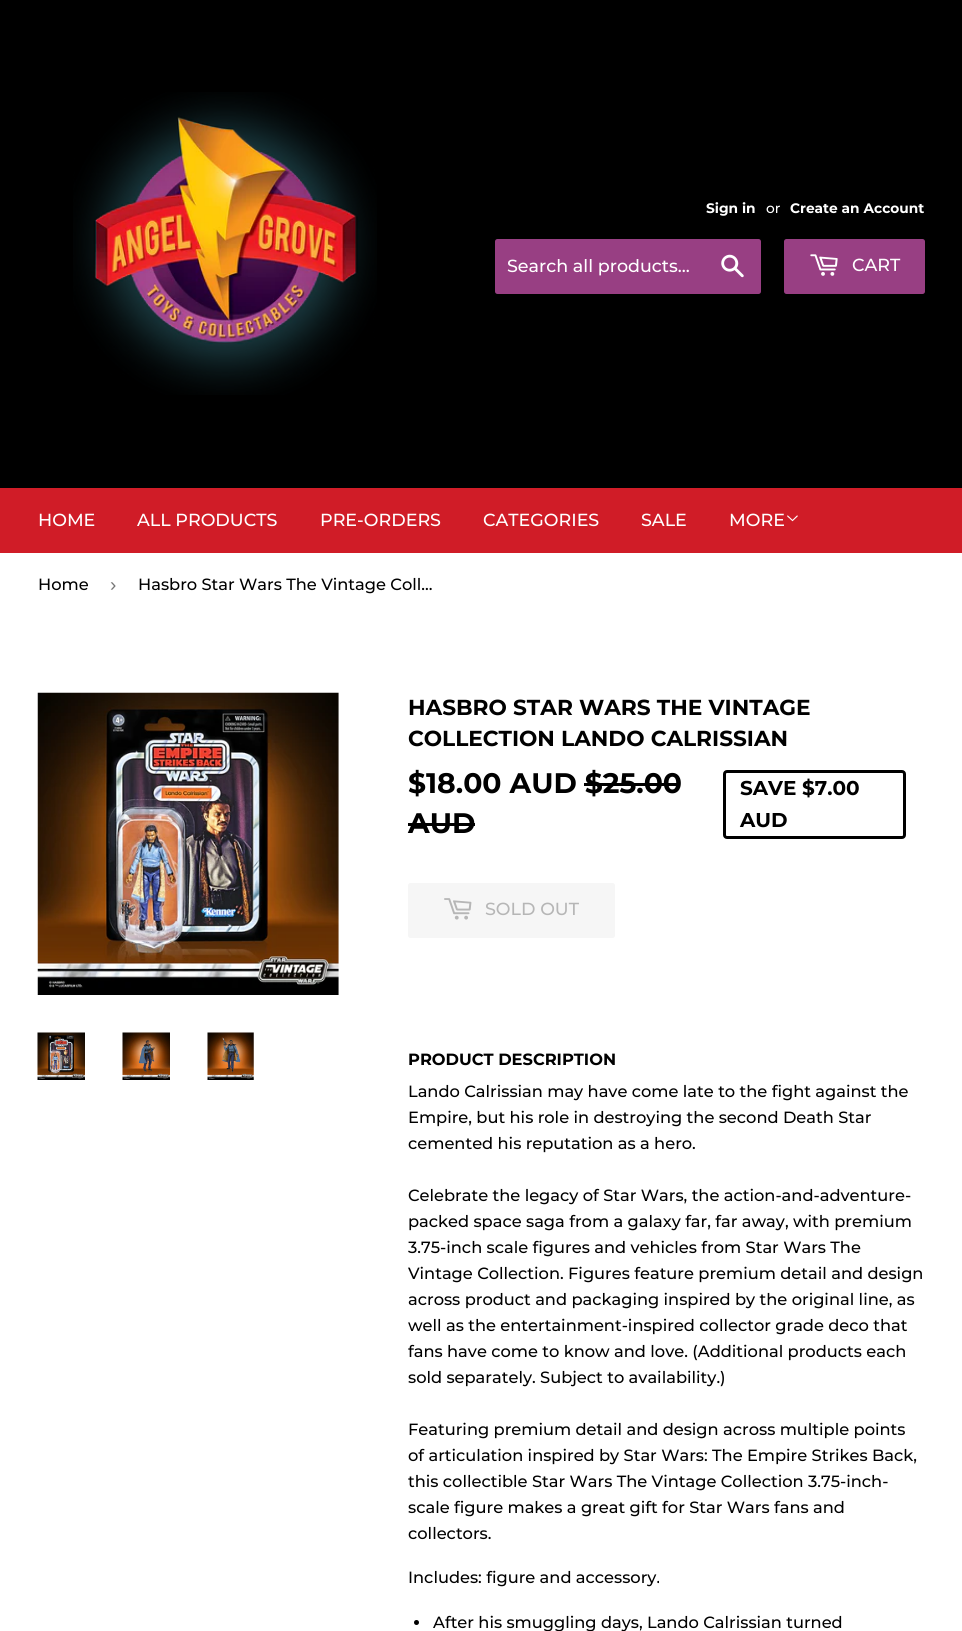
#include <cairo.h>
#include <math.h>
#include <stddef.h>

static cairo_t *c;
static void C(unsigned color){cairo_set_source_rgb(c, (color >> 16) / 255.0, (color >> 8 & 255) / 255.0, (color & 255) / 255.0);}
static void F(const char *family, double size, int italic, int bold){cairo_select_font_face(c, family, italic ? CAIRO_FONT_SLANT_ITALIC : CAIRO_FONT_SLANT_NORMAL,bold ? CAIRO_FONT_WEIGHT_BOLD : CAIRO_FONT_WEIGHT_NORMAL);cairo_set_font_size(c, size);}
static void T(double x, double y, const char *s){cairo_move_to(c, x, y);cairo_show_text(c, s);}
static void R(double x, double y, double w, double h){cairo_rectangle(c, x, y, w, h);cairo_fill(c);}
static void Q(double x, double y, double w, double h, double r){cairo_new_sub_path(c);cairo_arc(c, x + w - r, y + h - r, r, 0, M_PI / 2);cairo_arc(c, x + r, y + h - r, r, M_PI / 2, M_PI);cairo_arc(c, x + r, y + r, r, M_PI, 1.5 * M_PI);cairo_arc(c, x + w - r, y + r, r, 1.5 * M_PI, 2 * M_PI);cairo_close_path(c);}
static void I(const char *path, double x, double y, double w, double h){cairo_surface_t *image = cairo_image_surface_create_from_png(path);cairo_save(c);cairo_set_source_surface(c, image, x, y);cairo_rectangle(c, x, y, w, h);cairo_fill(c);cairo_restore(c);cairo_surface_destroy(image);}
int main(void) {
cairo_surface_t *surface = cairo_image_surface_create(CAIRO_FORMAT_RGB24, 962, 1631);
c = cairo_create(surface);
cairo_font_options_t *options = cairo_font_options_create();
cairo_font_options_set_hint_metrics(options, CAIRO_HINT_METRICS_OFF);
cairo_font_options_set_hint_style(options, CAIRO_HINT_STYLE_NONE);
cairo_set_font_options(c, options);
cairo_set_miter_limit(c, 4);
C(0xffffff);
cairo_paint(c);
C(0x000000);
R(0,0,962,488);
I("1.png",73,92,304,303);
F("Montserrat",13.75,0,1);
C(0xffffff);
T(706,213,"Sign in");
F("Montserrat Medium",13.75,0,0);
T(766,213,"or");
F("Montserrat",13.75,0,1);
T(790,213,"Create an Account");
C(0x983f83);
Q(495,239,266,55,2.5);
cairo_fill(c);
F("Montserrat Medium",17.5,0,0);
C(0xffffff);
T(507,272,"Search all products...");
I("2.png",721,254,23,24);
C(0x983f83);
Q(784,239,141,55,2.5);
cairo_fill(c);
I("3.png",810,254,28,22);
C(0xffffff);
T(852,271,"CART");
C(0xd01c27);
R(0,488,962,65);
C(0xffffff);
T(38,526,"HOME");
T(137,526,"ALL PRODUCTS");
T(320,526,"PRE-ORDERS");
T(483,526,"CATEGORIES");
T(641,526,"SALE");
T(729,526,"MORE");
I("4.png",787,515,11,7);
F("Montserrat Medium",16.25,0,0);
C(0x000000);
T(38,590,"Home");
F("Liberation Sans",19,0,0);
C(0x767676);
T(110,591,"›");
F("Montserrat Medium",16.25,0,0);
C(0x000000);
T(138,590,"Hasbro Star Wars The Vintage Coll…");
I("5.png",37,692,302,303);
I("6.png",37,1032,48,48);
I("7.png",122,1032,48,48);
I("8.png",207,1032,47,48);
F("Montserrat",21.7,0,1);
T(408,715,"HASBRO STAR WARS THE VINTAGE");
T(408,746,"COLLECTION LANDO CALRISSIAN");
F("Montserrat",28.25,0,1);
T(408,793,"$18.00 AUD $25.00");
T(408,833,"AUD");
R(584,783,96,3);
R(408,823,67,3);
Q(724.5,771.5,180,66,2.5);
cairo_set_line_width(c,3);
cairo_stroke(c);
F("Montserrat",20,0,1);
T(740,795,"SAVE $7.00");
T(740,827,"AUD");
C(0xf6f6f6);
Q(408,883,207,55,2.5);
cairo_fill(c);
I("9.png",444,898,28,22);
F("Montserrat Medium",17.5,0,0);
C(0xb6b6b6);
T(485,915,"SOLD OUT");
F("Montserrat",16.25,0,1);
C(0x000000);
T(408,1065,"PRODUCT DESCRIPTION");
F("Montserrat Medium",16.25,0,0);
T(408,1097,"Lando Calrissian may have come late to the fight against the");
T(408,1123,"Empire, but his role in destroying the second Death Star");
T(408,1149,"cemented his reputation as a hero.");
T(408,1201,"Celebrate the legacy of Star Wars, the action-and-adventure-");
T(408,1227,"packed space saga from a galaxy far, far away, with premium");
T(408,1253,"3.75-inch scale figures and vehicles from Star Wars The");
T(408,1279,"Vintage Collection. Figures feature premium detail and design");
T(408,1305,"across product and packaging inspired by the original line, as");
T(408,1331,"well as the entertainment-inspired collector grade deco that");
T(408,1357,"fans have come to know and love. (Additional products each");
T(408,1383,"sold separately. Subject to availability.)");
T(408,1435,"Featuring premium detail and design across multiple points");
T(408,1461,"of articulation inspired by Star Wars: The Empire Strikes Back,");
T(408,1487,"this collectible Star Wars The Vintage Collection 3.75-inch-");
T(408,1513,"scale figure makes a great gift for Star Wars fans and");
T(408,1539,"collectors.");
T(408,1583,"Includes: figure and accessory.");
cairo_new_path(c);
cairo_arc(c,416.5,1622.5,2.5,0,2 * M_PI);
cairo_fill(c);
T(433,1628,"After his smuggling days, Lando Calrissian turned");
cairo_surface_write_to_png(surface, "o.png");
cairo_font_options_destroy(options);
cairo_destroy(c);
cairo_surface_destroy(surface);
return 0;
}
